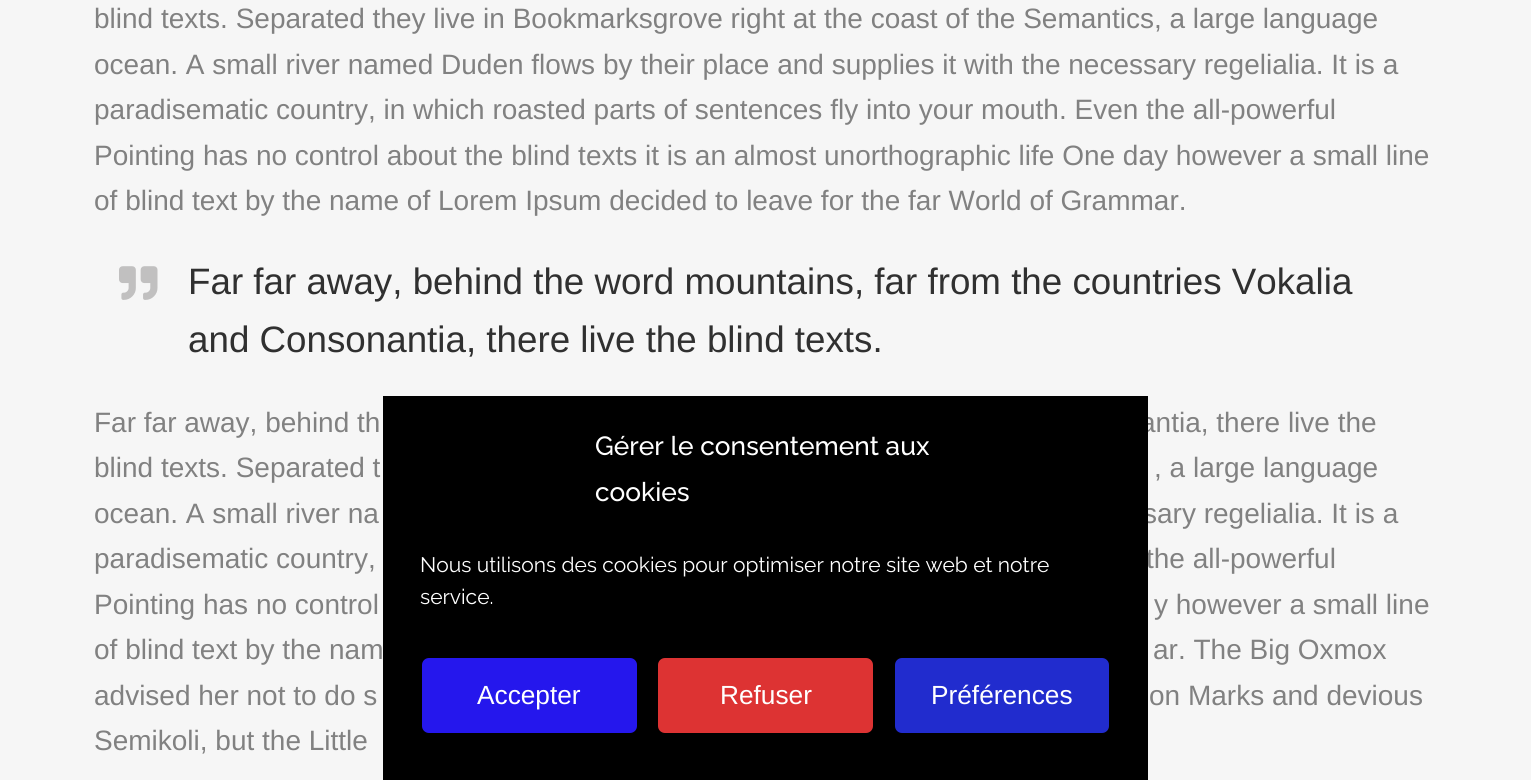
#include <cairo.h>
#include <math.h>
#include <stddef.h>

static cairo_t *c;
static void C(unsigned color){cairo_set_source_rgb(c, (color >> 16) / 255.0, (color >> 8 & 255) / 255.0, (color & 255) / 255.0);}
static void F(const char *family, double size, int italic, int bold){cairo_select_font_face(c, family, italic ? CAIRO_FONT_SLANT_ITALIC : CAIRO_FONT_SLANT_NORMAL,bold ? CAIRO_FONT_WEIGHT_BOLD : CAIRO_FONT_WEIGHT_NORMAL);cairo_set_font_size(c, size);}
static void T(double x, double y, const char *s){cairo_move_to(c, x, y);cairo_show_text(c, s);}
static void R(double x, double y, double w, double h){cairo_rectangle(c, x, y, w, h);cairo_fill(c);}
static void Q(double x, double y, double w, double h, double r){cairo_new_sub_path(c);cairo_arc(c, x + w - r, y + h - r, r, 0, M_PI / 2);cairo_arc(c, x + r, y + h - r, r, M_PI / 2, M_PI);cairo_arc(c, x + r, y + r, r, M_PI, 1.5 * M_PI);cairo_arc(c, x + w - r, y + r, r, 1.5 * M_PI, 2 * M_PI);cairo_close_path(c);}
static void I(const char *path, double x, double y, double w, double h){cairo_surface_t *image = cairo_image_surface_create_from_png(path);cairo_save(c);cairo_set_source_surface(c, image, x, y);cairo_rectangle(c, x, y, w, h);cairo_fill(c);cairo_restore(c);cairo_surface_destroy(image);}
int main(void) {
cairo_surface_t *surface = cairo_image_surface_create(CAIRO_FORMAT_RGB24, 1531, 780);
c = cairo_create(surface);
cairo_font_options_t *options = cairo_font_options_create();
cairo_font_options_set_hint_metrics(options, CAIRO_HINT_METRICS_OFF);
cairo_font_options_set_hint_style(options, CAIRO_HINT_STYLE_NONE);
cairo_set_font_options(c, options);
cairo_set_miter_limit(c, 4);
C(0xf6f6f6);
cairo_paint(c);
F("Liberation Sans",28,0,0);
C(0x818181);
T(94,28,"blind texts. Separated they live in Bookmarksgrove right at the coast of the Semantics, a large language");
T(94,74,"ocean. A small river named Duden flows by their place and supplies it with the necessary regelialia. It is a");
T(94,119,"paradisematic country, in which roasted parts of sentences fly into your mouth. Even the all-powerful");
T(94,165,"Pointing has no control about the blind texts it is an almost unorthographic life One day however a small line");
T(94,210,"of blind text by the name of Lorem Ipsum decided to leave for the far World of Grammar.");
I("1.png",119,266,39,34);
F("Liberation Sans",36.75,0,0);
C(0x303030);
T(188,294,"Far far away, behind the word mountains, far from the countries Vokalia");
T(188,352,"and Consonantia, there live the blind texts.");
F("Liberation Sans",28,0,0);
C(0x818181);
T(94,432,"Far far away, behind th");
T(1140,432,"antia, there live the");
T(94,477,"blind texts. Separated t");
T(1154,477,", a large language");
T(94,523,"ocean. A small river na");
T(1143,523,"sary regelialia. It is a");
T(94,568,"paradisematic country,");
T(1146,568,"the all-powerful");
T(94,614,"Pointing has no control");
T(1154,614,"y however a small line");
T(94,659,"of blind text by the nam");
T(1153,659,"ar. The Big Oxmox");
T(94,705,"advised her not to do s");
T(1149,705,"on Marks and devious");
T(94,750,"Semikoli, but the Little");
C(0x000000);
R(383,396,765,384);
F("Raleway Medium",26.25,0,0);
C(0xffffff);
T(595,455,"Gérer le consentement aux");
T(595,501,"cookies");
F("Raleway",21,0,0);
T(420,572,"Nous utilisons des cookies pour optimiser notre site web et notre");
T(420,604,"service.");
C(0x2517ed);
Q(421,657,217,77,8);
cairo_fill_preserve(c);
C(0x000000);
cairo_stroke(c);
F("Liberation Sans",26.25,0,0);
C(0xffffff);
T(477,704,"Accepter");
C(0xdd3333);
Q(657,657,217,77,8);
cairo_fill_preserve(c);
C(0x000000);
cairo_stroke(c);
C(0xffffff);
T(720,704,"Refuser");
C(0x212cce);
Q(894,657,216,77,8);
cairo_fill_preserve(c);
C(0x000000);
cairo_stroke(c);
C(0xffffff);
T(931,704,"Préférences");
cairo_surface_write_to_png(surface, "o.png");
cairo_font_options_destroy(options);
cairo_destroy(c);
cairo_surface_destroy(surface);
return 0;
}
